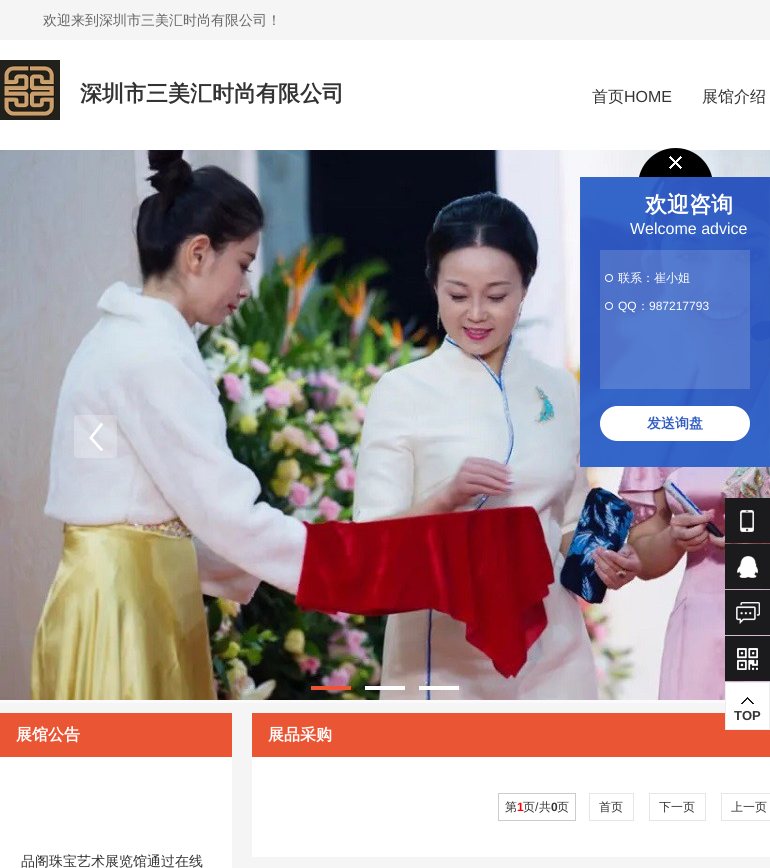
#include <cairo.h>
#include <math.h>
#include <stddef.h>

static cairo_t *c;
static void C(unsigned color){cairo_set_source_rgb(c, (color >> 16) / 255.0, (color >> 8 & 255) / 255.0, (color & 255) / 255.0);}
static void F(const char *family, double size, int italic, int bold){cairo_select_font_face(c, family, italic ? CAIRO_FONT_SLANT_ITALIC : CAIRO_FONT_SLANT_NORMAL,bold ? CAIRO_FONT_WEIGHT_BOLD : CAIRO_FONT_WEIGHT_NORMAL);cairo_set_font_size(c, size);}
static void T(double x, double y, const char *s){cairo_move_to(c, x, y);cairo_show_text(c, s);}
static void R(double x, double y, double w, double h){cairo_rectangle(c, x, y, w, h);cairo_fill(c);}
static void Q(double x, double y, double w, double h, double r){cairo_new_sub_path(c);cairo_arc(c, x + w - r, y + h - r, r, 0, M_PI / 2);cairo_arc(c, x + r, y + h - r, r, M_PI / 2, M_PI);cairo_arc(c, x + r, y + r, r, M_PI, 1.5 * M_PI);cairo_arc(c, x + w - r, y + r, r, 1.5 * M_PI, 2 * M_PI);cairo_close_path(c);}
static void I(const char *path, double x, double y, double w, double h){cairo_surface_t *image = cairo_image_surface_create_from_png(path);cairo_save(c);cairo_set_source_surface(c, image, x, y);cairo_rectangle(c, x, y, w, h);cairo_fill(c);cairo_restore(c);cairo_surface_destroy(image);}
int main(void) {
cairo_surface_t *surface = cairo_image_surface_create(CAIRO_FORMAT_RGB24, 770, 868);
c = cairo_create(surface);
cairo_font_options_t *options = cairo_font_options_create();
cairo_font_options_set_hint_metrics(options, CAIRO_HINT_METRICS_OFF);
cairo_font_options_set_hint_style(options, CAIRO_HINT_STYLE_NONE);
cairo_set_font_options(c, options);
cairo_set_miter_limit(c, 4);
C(0xf5f5f5);
cairo_paint(c);
C(0xffffff);
R(0,40,770,110);
F("WenQuanYi Zen Hei Medium",14,0,0);
C(0x666666);
T(43,25,"欢迎来到深圳市三美汇时尚有限公司！");
I("1.png",0,60,60,60);
F("WenQuanYi Zen Hei",22,0,1);
C(0x333333);
T(80,101,"深圳市三美汇时尚有限公司");
F("WenQuanYi Zen Hei Medium",16,0,0);
T(592,102,"首页");
F("Liberation Sans",16,0,0);
T(624,102,"HOME");
F("WenQuanYi Zen Hei Medium",16,0,0);
T(702,102,"展馆介绍");
C(0xfafafa);
R(0,700,725,3);
I("2.png",0,150,770,550);
I("3.png",74,415,43,43);
C(0xea5534);
R(311,686,40,4);
C(0xffffff);
R(365,686,40,4);
R(419,686,40,4);
I("4.png",580,148,190,319);
I("5.png",669,156,13,13);
F("WenQuanYi Zen Hei",22,0,1);
T(645,212,"欢迎咨询");
F("Liberation Sans",16,0,0);
T(630,234,"Welcome advice");
cairo_set_source_rgba(c,1,1,1,0.16);
R(600,250,150,139);
cairo_new_path(c);
cairo_arc(c,609,278,3.5,0,2 * M_PI);
C(0xffffff);
cairo_set_line_width(c,1);
cairo_stroke(c);
F("WenQuanYi Zen Hei Medium",12,0,0);
T(618,282,"联系：崔小姐");
cairo_new_path(c);
cairo_arc(c,609,306,3.5,0,2 * M_PI);
cairo_stroke(c);
F("Liberation Sans",12,0,0);
T(618,310,"QQ");
F("WenQuanYi Zen Hei Medium",12,0,0);
T(637,310,"：");
F("Liberation Sans",12,0,0);
T(649,310,"987217793");
Q(600,406,150,35,17.5);
cairo_fill(c);
F("WenQuanYi Zen Hei",14,0,1);
C(0x305dc3);
T(647,428,"发送询盘");
C(0x1b1b1d);
R(725,498,45,45);
I("6.png",740,510,14,22);
R(725,544,45,45);
I("7.png",737,556,21,22);
R(725,590,45,45);
I("8.png",736,602,24,22);
R(725,636,45,45);
I("9.png",737,648,21,22);
C(0xea5534);
R(252,713,518,44);
C(0xffffff);
cairo_rectangle(c,725.5,682.5,44,47);
cairo_fill_preserve(c);
C(0xededed);
cairo_stroke(c);
I("10.png",741,697,13,7);
F("Liberation Sans",13,0,1);
C(0x333333);
T(734,720,"TOP");
C(0xea5534);
R(0,713,232,44);
F("WenQuanYi Zen Hei",16,0,1);
C(0xffffff);
T(16,740,"展馆公告");
R(0,757,232,111);
F("WenQuanYi Zen Hei Medium",14,0,0);
C(0x333333);
T(21,866,"品阁珠宝艺术展览馆通过在线");
F("WenQuanYi Zen Hei",16,0,1);
C(0xffffff);
T(268,740,"展品采购");
R(252,757,518,100);
F("WenQuanYi Zen Hei Medium",12,0,0);
C(0x333333);
T(505,811,"第");
C(0xcccccc);
R(498,820,59,1);
R(498,793,78,1);
R(498,793,1,28);
F("Liberation Sans",12,0,1);
C(0xff0000);
T(517,811,"1");
F("WenQuanYi Zen Hei Medium",12,0,0);
C(0x333333);
T(523,811,"页");
F("Liberation Sans",12,0,0);
T(535,811,"/");
F("WenQuanYi Zen Hei Medium",12,0,0);
T(539,811,"共");
F("Liberation Sans",12,0,1);
T(551,811,"0");
C(0xcccccc);
R(575,793,1,28);
R(557,820,19,1);
F("WenQuanYi Zen Hei Medium",12,0,0);
C(0x333333);
T(557,811,"页");
cairo_rectangle(c,589.5,793.5,44,27);
C(0xe6e6e6);
cairo_stroke(c);
C(0x333333);
T(599,811,"首页");
cairo_rectangle(c,649.5,793.5,56,27);
C(0xe6e6e6);
cairo_stroke(c);
C(0x333333);
T(659,811,"下一页");
cairo_rectangle(c,721.5,793.5,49,27);
C(0xe6e6e6);
cairo_stroke(c);
C(0x333333);
T(731,811,"上一页");
cairo_surface_write_to_png(surface, "o.png");
cairo_font_options_destroy(options);
cairo_destroy(c);
cairo_surface_destroy(surface);
return 0;
}
